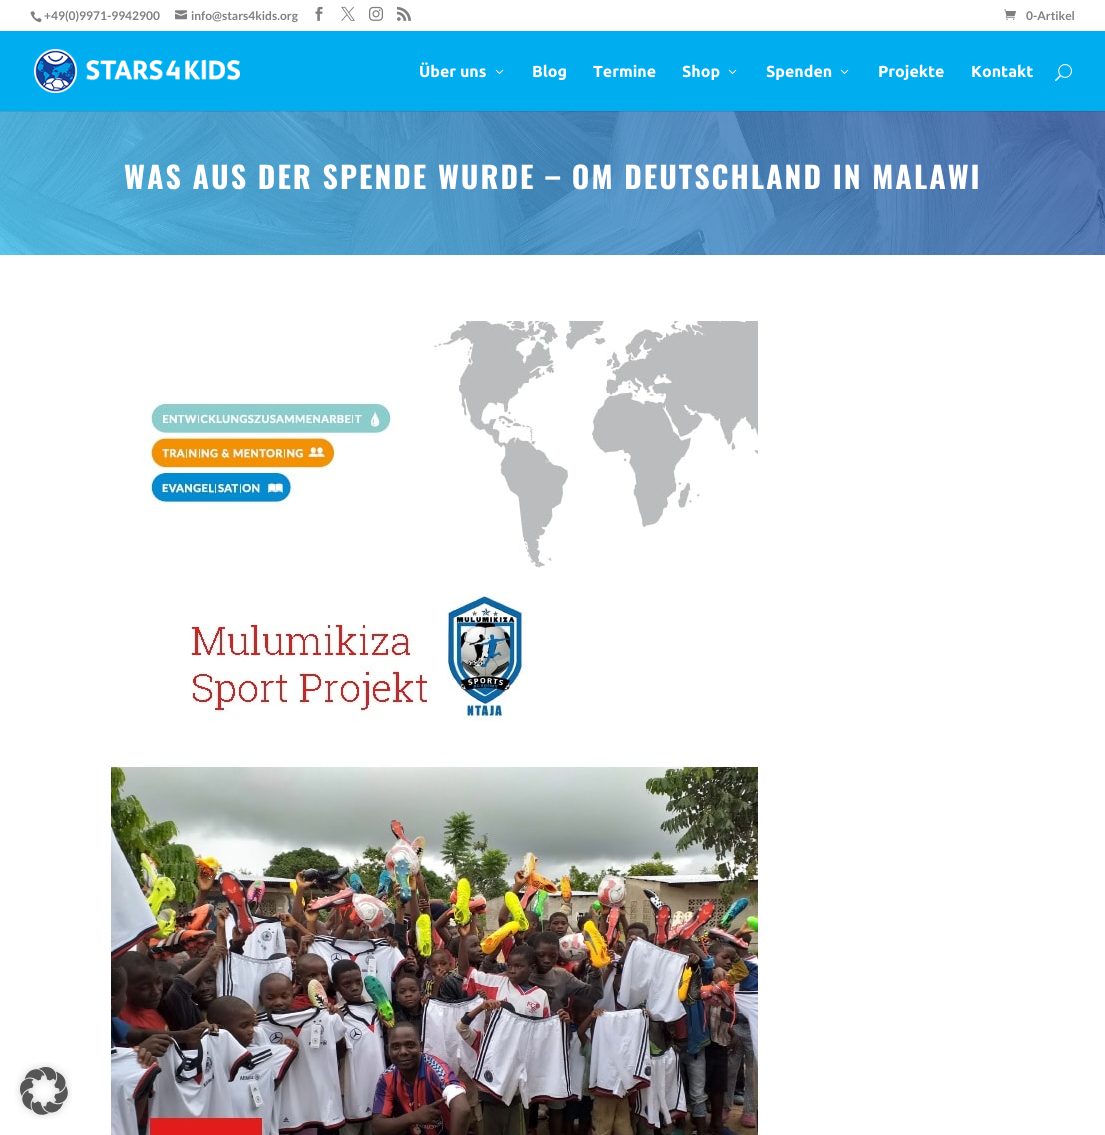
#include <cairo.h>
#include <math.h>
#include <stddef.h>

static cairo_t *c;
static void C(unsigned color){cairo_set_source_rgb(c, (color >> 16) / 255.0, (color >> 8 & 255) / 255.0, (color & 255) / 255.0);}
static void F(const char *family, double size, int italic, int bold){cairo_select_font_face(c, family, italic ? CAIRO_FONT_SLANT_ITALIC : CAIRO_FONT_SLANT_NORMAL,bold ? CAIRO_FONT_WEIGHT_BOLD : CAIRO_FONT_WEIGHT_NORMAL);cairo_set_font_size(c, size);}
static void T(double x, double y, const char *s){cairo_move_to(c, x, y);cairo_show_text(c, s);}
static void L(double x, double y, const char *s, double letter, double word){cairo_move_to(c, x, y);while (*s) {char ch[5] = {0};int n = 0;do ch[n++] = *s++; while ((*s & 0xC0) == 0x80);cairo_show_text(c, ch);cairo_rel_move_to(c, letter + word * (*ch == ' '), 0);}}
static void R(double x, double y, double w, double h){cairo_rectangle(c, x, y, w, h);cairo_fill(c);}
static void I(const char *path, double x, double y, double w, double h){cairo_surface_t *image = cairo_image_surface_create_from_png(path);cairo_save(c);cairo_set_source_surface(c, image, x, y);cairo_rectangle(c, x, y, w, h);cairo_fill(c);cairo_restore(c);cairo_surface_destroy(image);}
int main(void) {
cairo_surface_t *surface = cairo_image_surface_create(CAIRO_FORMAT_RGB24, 1105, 1135);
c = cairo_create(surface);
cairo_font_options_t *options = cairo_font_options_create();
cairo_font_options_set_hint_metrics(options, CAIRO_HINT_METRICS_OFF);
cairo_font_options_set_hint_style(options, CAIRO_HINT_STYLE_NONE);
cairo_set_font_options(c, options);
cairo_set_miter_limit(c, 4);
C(0xffffff);
cairo_paint(c);
I("1.png",30,11,12,12);
F("Lato",12,0,1);
C(0x808080);
T(44,20,"+49(0)9971-9942900");
I("2.png",175,10,12,10);
T(191,20,"info@stars4kids.org");
I("3.png",315,6,8,15);
I("4.png",341,6,14,15);
I("5.png",369,6,14,15);
I("6.png",397,6,14,15);
I("7.png",1004,9,12,11);
T(1026,20,"0-Artikel");
I("11.png",0,111,1105,144);
cairo_set_source_rgba(c,0,0,0,0.1);
R(0,111,1105,1);
C(0x00aeef);
R(0,31,1105,80);
I("8.png",34,49,206,44);
F("Ubuntu",16,0,1);
C(0xffffff);
T(419,77,"Über uns");
I("9.png",495,69,9,5);
T(532,77,"Blog");
T(593,77,"Termine");
T(682,77,"Shop");
I("9.png",728,69,9,5);
T(766,77,"Spenden");
I("9.png",840,69,9,5);
T(878,77,"Projekte");
T(971,77,"Kontakt");
I("10.png",1055,64,17,18);
F("Oswald",30,0,1);
L(124,189,"WAS AUS DER SPENDE WURDE – OM DEUTSCHLAND IN MALAWI",2,0);
I("12.png",111,321,647,814);
I("13.png",15,1062,57,57);
cairo_surface_write_to_png(surface, "o.png");
cairo_font_options_destroy(options);
cairo_destroy(c);
cairo_surface_destroy(surface);
return 0;
}
